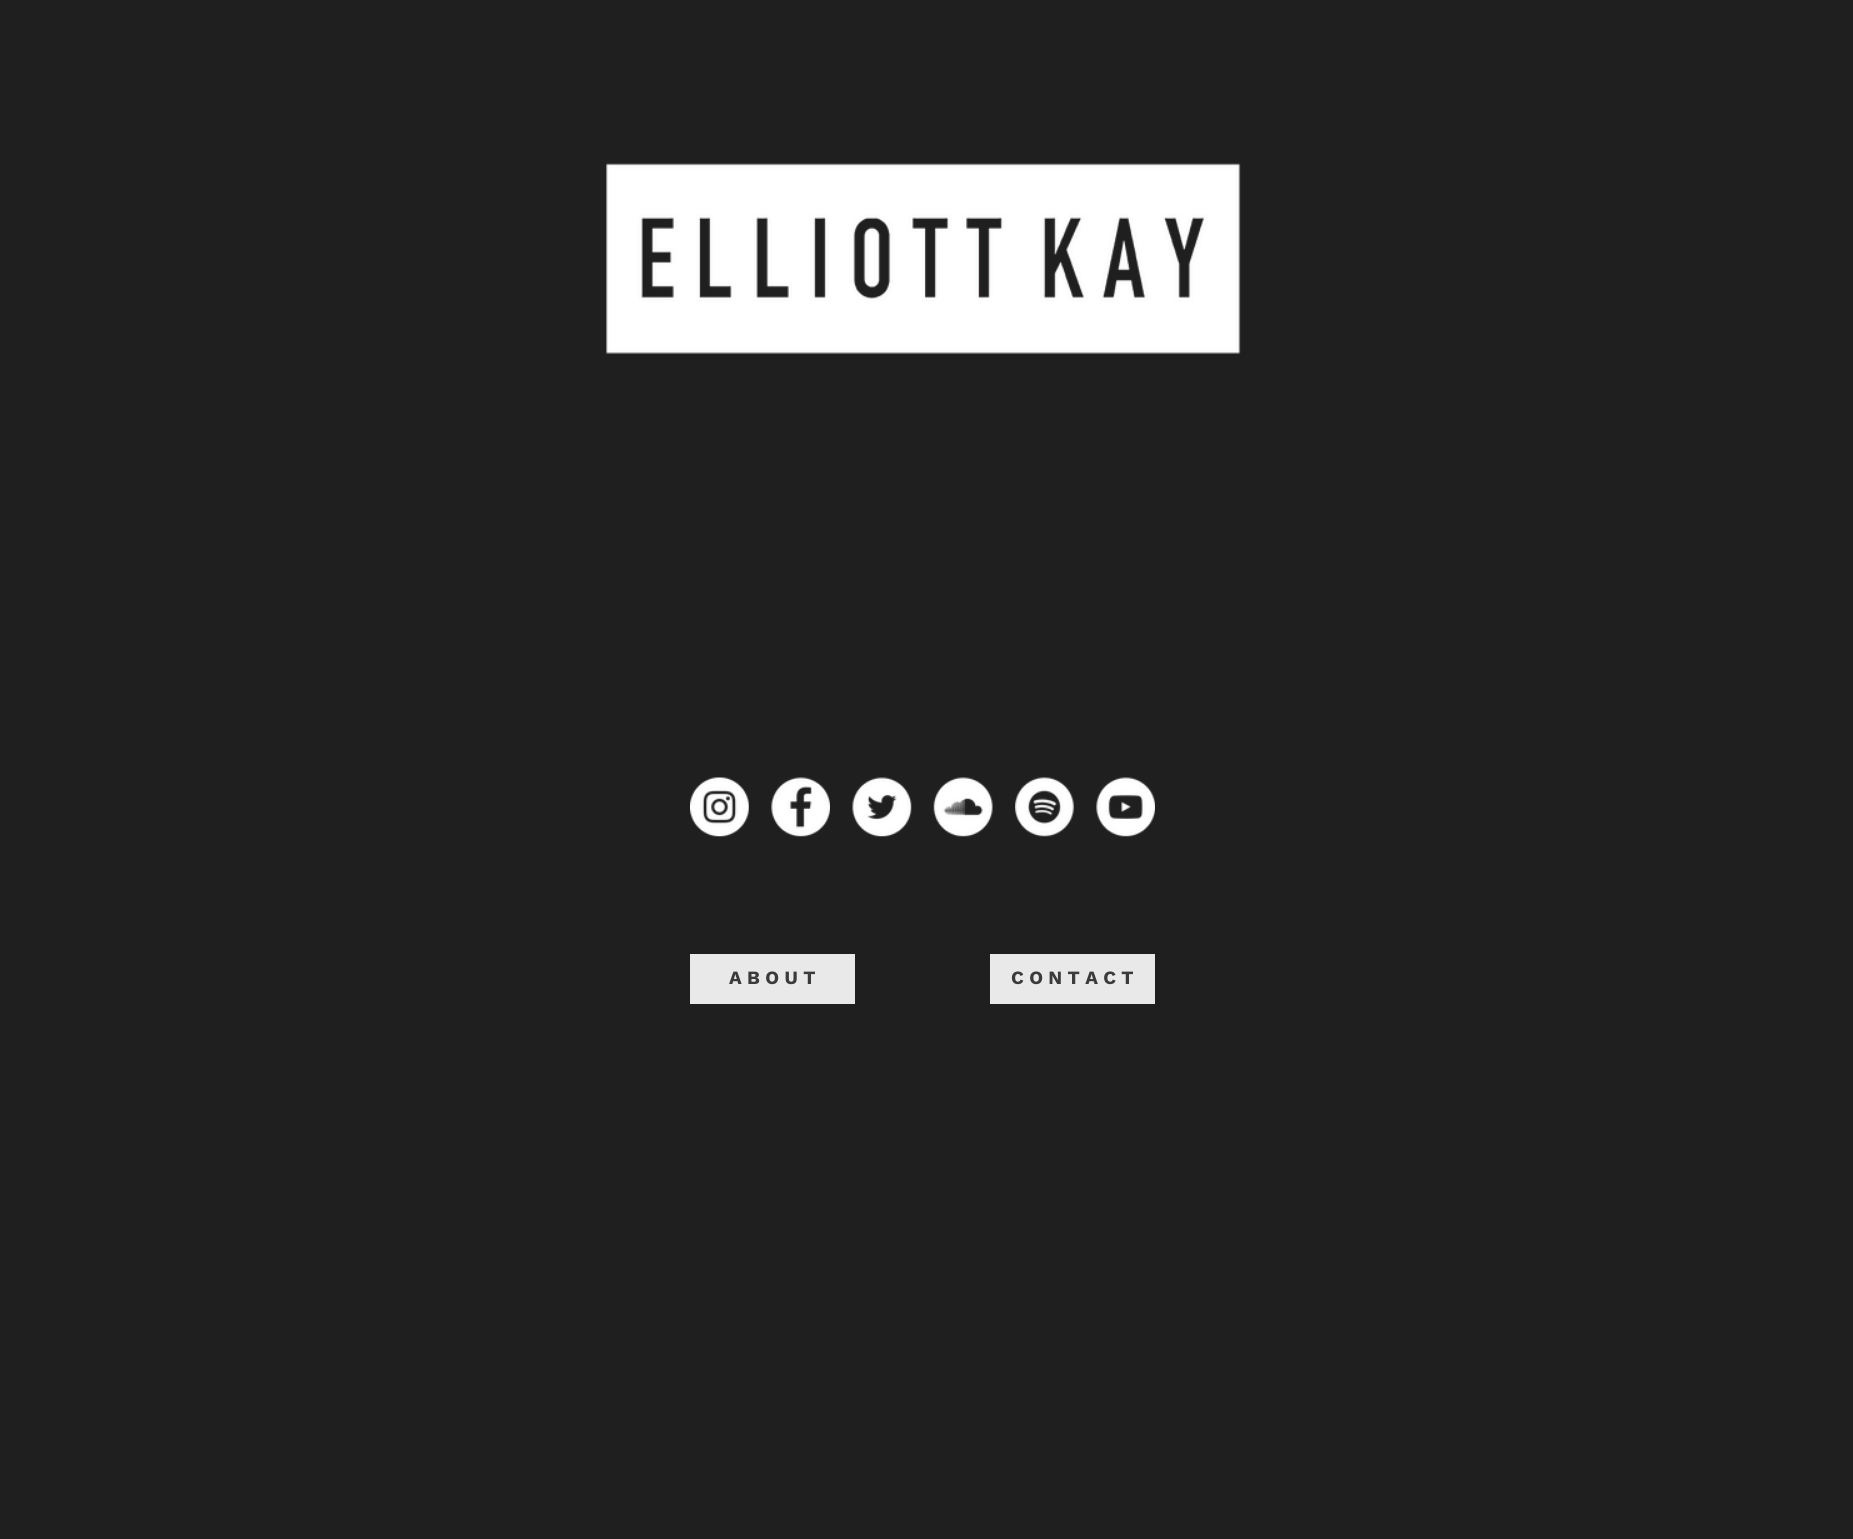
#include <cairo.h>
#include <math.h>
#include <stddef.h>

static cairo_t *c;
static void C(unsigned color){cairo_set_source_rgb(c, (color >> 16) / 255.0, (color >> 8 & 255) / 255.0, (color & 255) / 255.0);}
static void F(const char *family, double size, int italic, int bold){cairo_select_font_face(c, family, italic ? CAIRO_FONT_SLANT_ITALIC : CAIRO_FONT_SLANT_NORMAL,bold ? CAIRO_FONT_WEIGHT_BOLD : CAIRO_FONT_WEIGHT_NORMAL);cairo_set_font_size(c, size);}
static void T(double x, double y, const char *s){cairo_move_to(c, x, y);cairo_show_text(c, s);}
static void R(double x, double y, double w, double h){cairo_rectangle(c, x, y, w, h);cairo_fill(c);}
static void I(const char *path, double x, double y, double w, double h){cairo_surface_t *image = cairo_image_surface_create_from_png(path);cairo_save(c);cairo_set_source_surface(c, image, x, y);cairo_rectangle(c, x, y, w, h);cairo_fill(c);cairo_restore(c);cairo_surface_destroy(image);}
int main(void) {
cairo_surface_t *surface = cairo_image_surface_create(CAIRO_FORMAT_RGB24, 1853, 1539);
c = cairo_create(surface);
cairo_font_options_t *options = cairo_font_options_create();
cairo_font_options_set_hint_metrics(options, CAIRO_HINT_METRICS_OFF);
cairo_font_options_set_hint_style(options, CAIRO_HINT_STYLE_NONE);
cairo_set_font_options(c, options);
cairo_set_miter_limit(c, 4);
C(0x1f1f1f);
cairo_paint(c);
I("1.png",606,163,635,191);
I("2.png",690,777,59,60);
I("3.png",771,777,59,60);
I("4.png",852,777,60,60);
I("5.png",933,777,60,60);
I("6.png",1015,777,59,60);
I("7.png",1096,777,59,60);
C(0xe9e9e9);
R(690,954,165,50);
F("Work Sans",18.75,0,1);
C(0x3b3b3b);
T(729,984,"A B O U T");
C(0xe9e9e9);
R(990,954,165,50);
C(0x3b3b3b);
T(1011,984,"C O N T A C T");
cairo_surface_write_to_png(surface, "o.png");
cairo_font_options_destroy(options);
cairo_destroy(c);
cairo_surface_destroy(surface);
return 0;
}
